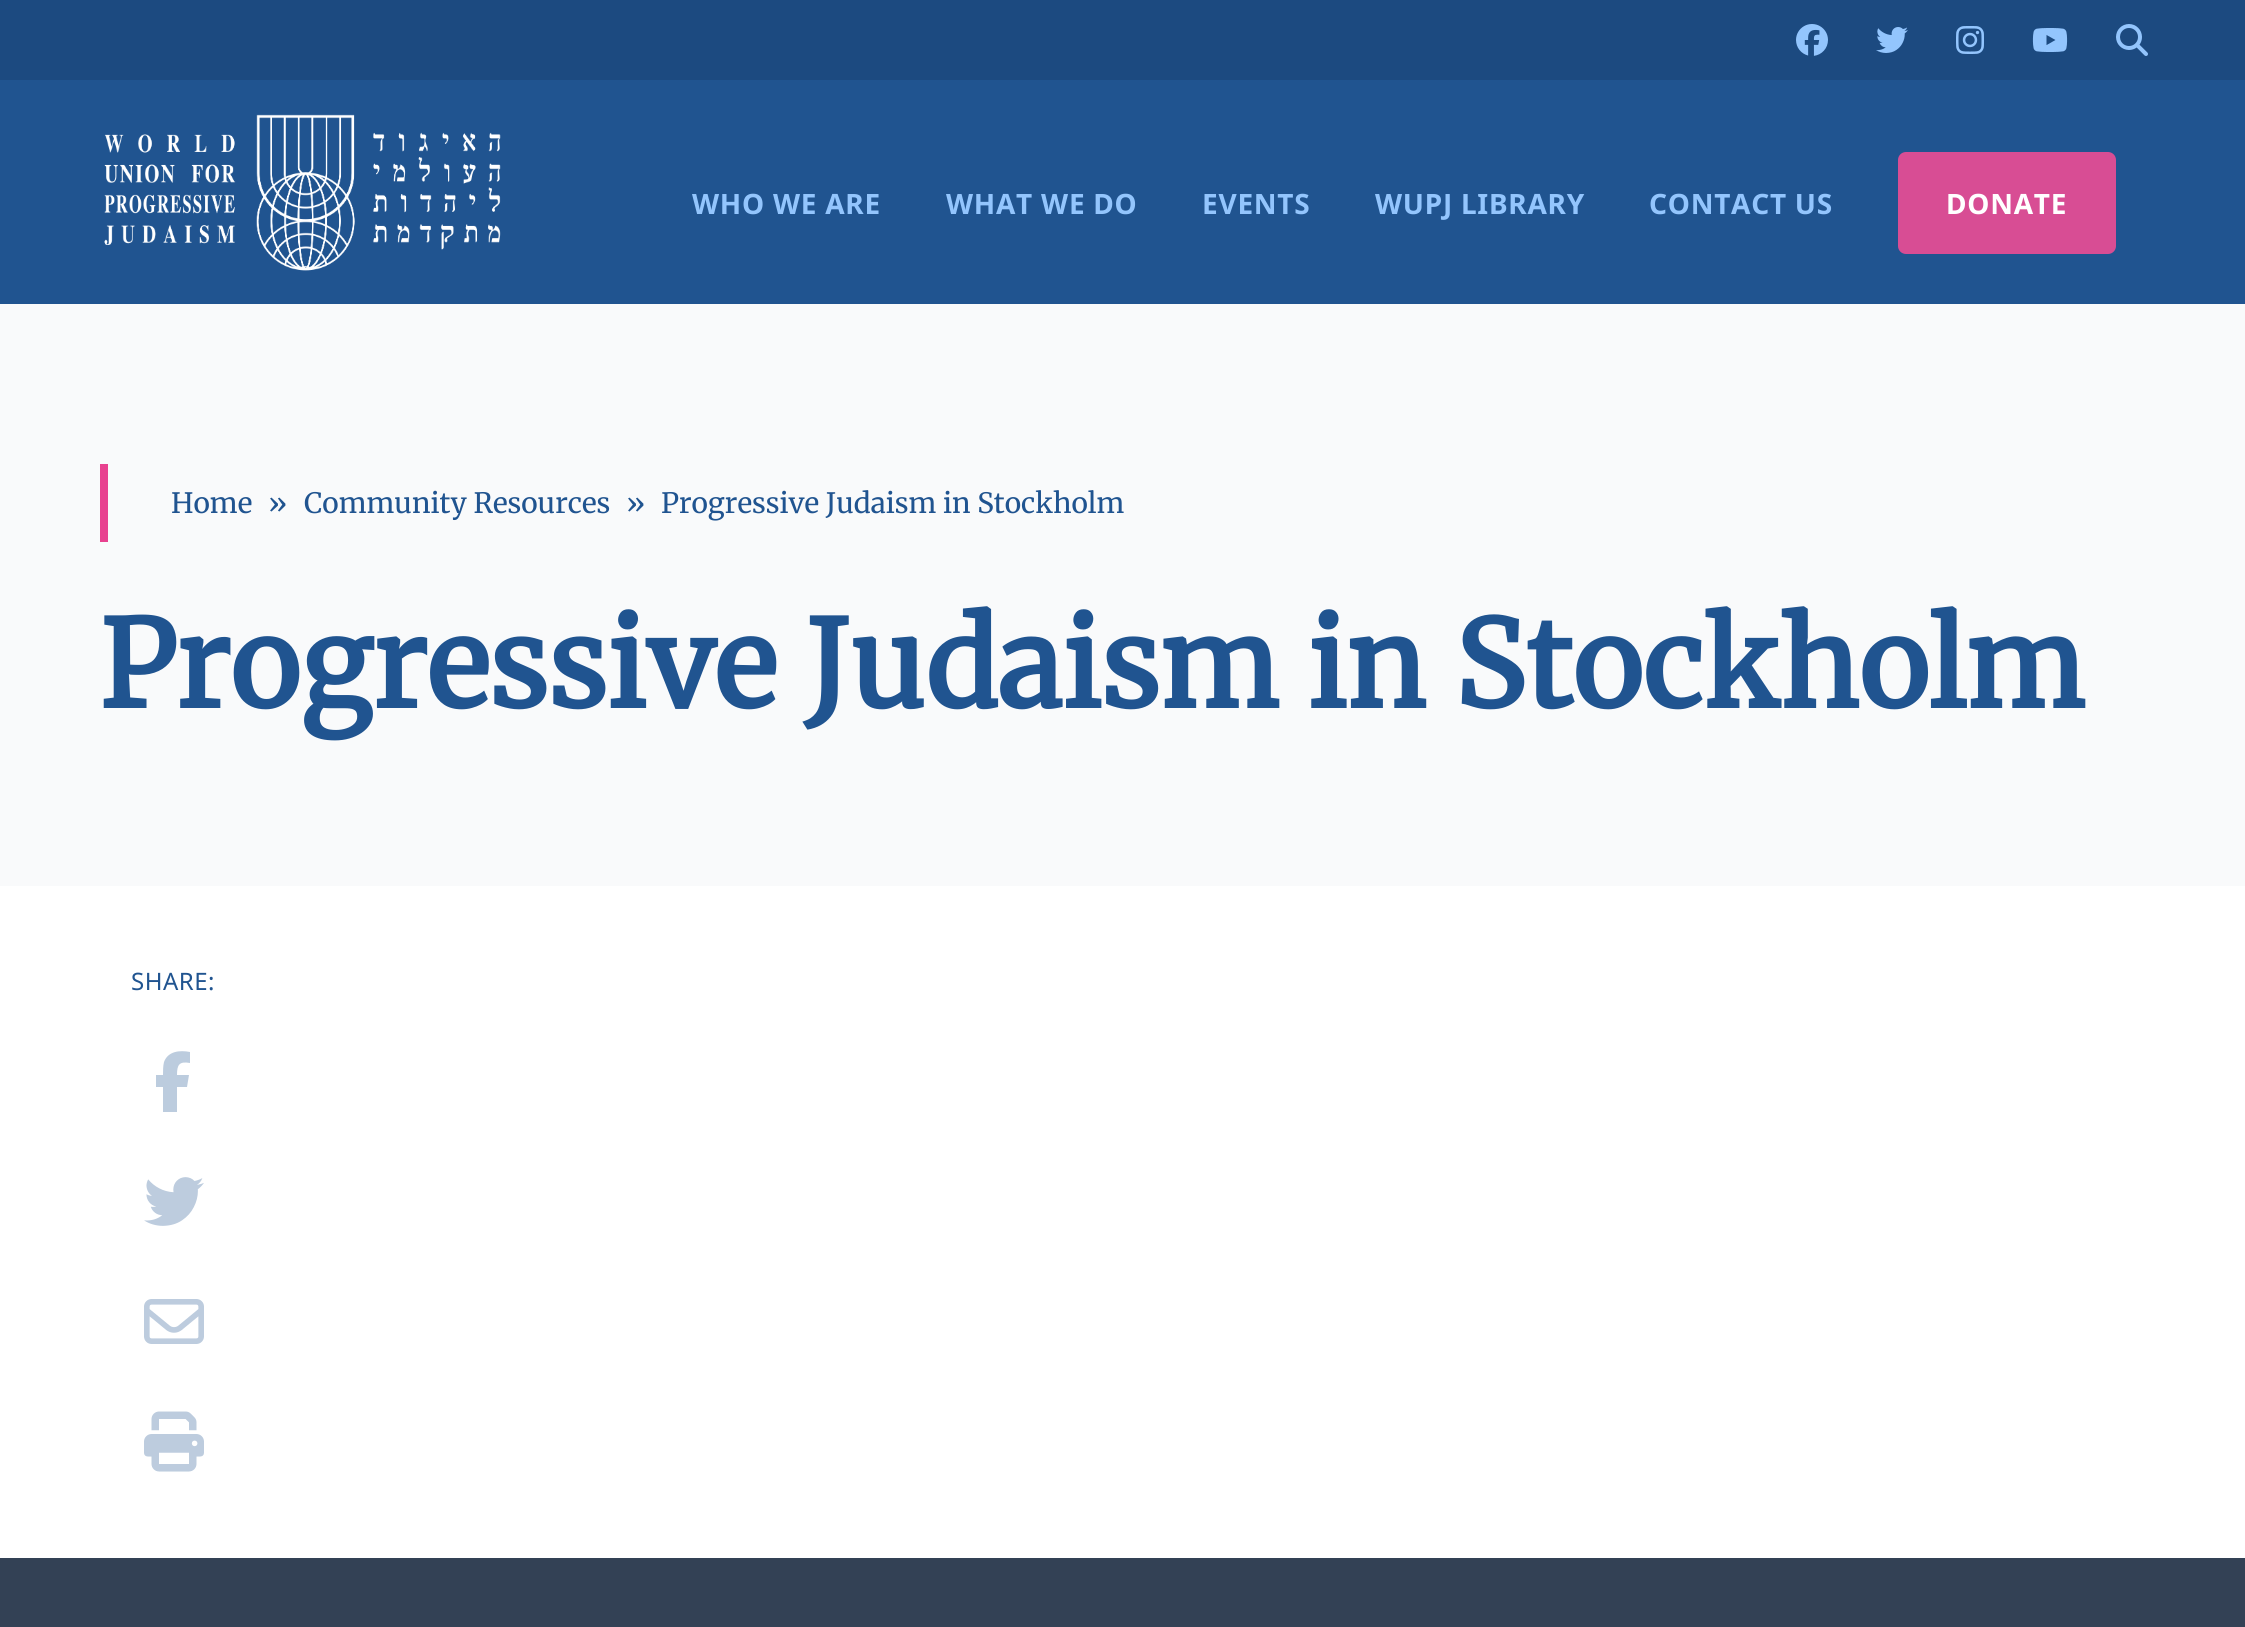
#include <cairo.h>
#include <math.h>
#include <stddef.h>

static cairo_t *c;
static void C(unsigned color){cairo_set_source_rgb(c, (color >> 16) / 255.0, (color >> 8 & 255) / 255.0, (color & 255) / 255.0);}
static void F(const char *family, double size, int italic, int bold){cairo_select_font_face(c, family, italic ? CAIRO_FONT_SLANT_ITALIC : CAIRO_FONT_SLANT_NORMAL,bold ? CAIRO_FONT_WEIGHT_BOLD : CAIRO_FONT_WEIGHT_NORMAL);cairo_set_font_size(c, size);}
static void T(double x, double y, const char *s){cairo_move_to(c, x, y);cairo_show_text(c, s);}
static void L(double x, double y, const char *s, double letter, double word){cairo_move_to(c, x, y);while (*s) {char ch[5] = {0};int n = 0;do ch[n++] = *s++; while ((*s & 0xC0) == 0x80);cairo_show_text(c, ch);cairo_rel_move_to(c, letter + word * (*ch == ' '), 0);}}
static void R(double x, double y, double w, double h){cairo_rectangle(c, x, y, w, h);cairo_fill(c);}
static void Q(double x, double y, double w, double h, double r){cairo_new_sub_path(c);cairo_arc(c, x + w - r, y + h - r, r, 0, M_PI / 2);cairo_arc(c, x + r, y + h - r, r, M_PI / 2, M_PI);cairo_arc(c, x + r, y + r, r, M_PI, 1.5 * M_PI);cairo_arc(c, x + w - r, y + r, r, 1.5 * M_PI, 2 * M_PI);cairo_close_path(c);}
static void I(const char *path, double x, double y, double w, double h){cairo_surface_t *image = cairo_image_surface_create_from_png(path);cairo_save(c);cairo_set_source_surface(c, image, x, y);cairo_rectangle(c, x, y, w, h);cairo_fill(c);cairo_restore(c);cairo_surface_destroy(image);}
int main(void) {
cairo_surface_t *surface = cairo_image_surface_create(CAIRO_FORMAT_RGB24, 2245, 1627);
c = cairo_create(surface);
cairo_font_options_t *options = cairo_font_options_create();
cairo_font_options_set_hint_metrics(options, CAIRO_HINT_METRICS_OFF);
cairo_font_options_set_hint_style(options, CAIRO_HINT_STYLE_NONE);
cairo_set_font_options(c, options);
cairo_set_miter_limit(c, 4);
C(0xf9fafb);
cairo_paint(c);
C(0x205490);
R(0,80,2245,224);
C(0x1c4a80);
R(0,0,2245,80);
I("1.png",1796,24,32,32);
I("2.png",1876,27,32,26);
I("3.png",1956,26,28,28);
I("4.png",2032,28,36,24);
I("5.png",2116,24,32,32);
I("6.png",104,114,397,157);
F("Noto Sans",28,0,1);
C(0x93c5fd);
L(692,214,"WHO WE ARE",.75,0);
L(946,214,"WHAT WE DO",.75,0);
L(1202,214,"EVENTS",.75,0);
L(1375,214,"WUPJ LIBRARY",.75,0);
L(1649,214,"CONTACT US",.75,0);
C(0xd84d94);
Q(1898,152,218,102,8);
cairo_fill(c);
C(0xffffff);
L(1946,214,"DONATE",.75,0);
C(0xe8418f);
R(100,464,8,78);
F("Merriweather Light",28,0,0);
C(0x205490);
T(171,513,"Home");
T(268,513,"»");
T(304,513,"Community Resources");
T(626,513,"»");
T(661,513,"Progressive Judaism in Stockholm");
F("Merriweather",120,0,1);
T(99,708,"Progressive Judaism in Stockholm");
C(0xffffff);
R(0,886,2245,672);
F("Noto Sans",24,0,0);
C(0x205490);
L(131,990,"SHARE:",.5,0);
C(0xbcccde);
cairo_new_path(c);
cairo_move_to(c,163,1087);
cairo_line_to(c,163,1112);
cairo_line_to(c,163,1087);
cairo_line_to(c,163,1112);
cairo_line_to(c,177,1112);
cairo_line_to(c,177,1087);
cairo_line_to(c,187,1087);
cairo_line_to(c,189,1075);
cairo_line_to(c,177,1075);
cairo_curve_to(c,177,1065,179,1061,190,1063);
cairo_line_to(c,190,1052);
cairo_curve_to(c,180,1050,168,1051,164,1062);
cairo_curve_to(c,163,1066,163,1071,163,1075);
cairo_line_to(c,156,1075);
cairo_line_to(c,156,1087);
cairo_close_path(c);
cairo_fill(c);
I("7.png",144,1177,60,49);
I("8.png",144,1299,60,45);
I("9.png",144,1411,60,61);
C(0x334155);
R(0,1558,2245,69);
cairo_surface_write_to_png(surface, "o.png");
cairo_font_options_destroy(options);
cairo_destroy(c);
cairo_surface_destroy(surface);
return 0;
}
